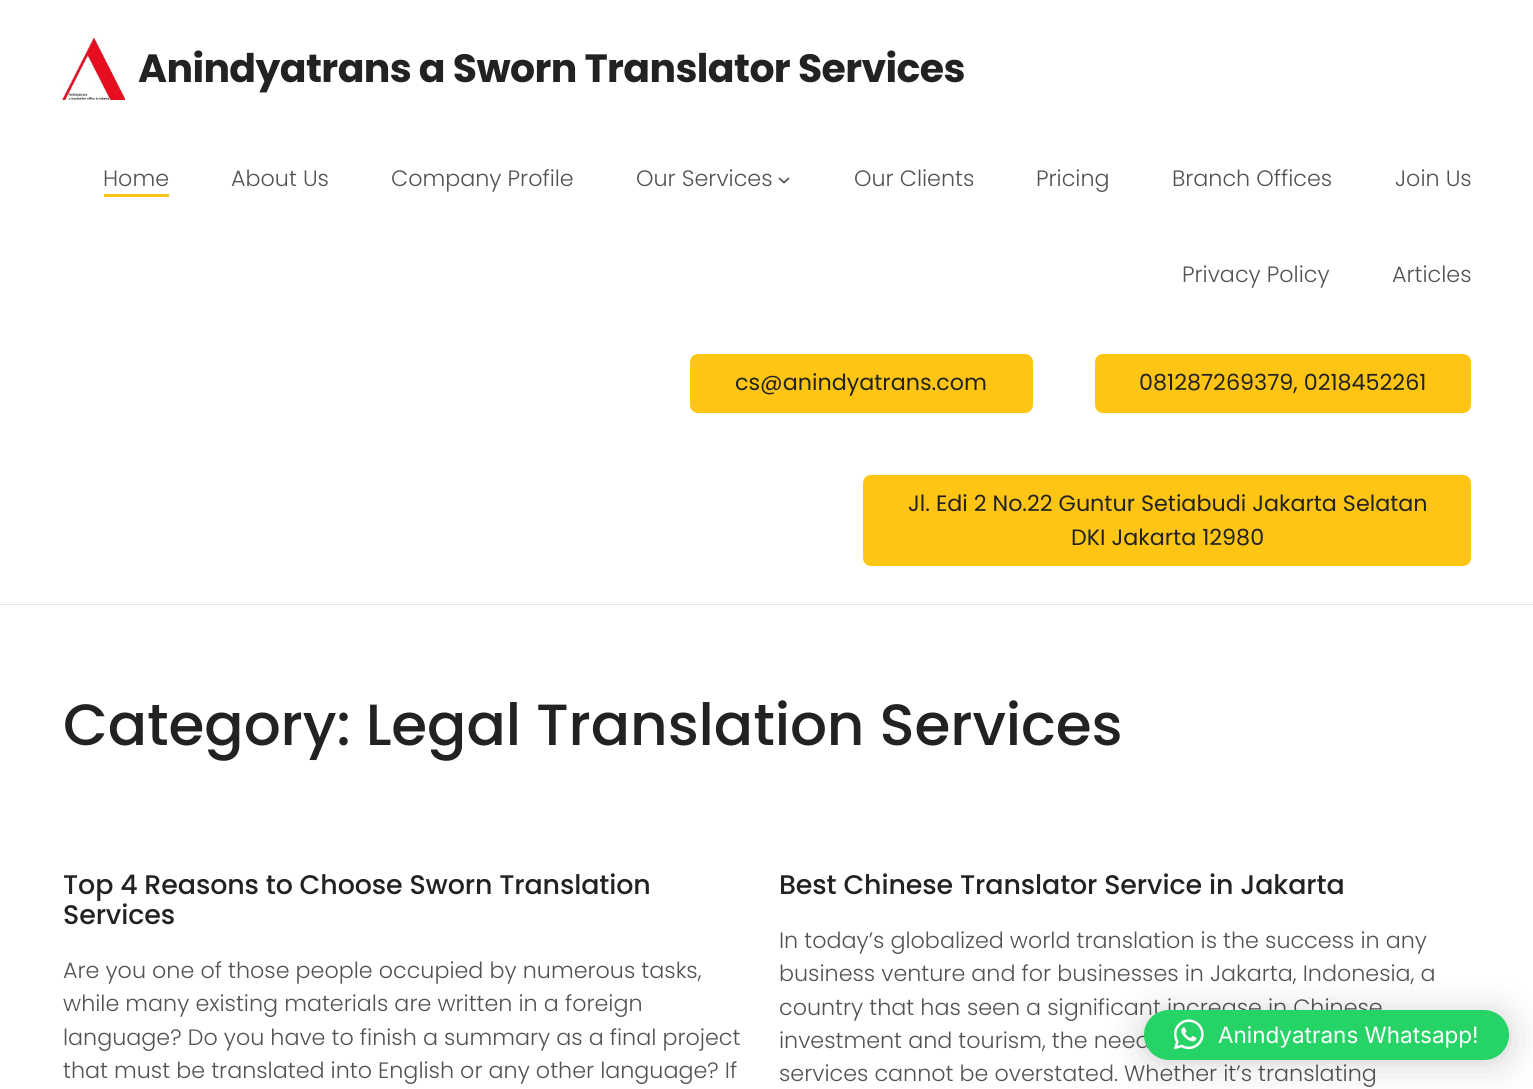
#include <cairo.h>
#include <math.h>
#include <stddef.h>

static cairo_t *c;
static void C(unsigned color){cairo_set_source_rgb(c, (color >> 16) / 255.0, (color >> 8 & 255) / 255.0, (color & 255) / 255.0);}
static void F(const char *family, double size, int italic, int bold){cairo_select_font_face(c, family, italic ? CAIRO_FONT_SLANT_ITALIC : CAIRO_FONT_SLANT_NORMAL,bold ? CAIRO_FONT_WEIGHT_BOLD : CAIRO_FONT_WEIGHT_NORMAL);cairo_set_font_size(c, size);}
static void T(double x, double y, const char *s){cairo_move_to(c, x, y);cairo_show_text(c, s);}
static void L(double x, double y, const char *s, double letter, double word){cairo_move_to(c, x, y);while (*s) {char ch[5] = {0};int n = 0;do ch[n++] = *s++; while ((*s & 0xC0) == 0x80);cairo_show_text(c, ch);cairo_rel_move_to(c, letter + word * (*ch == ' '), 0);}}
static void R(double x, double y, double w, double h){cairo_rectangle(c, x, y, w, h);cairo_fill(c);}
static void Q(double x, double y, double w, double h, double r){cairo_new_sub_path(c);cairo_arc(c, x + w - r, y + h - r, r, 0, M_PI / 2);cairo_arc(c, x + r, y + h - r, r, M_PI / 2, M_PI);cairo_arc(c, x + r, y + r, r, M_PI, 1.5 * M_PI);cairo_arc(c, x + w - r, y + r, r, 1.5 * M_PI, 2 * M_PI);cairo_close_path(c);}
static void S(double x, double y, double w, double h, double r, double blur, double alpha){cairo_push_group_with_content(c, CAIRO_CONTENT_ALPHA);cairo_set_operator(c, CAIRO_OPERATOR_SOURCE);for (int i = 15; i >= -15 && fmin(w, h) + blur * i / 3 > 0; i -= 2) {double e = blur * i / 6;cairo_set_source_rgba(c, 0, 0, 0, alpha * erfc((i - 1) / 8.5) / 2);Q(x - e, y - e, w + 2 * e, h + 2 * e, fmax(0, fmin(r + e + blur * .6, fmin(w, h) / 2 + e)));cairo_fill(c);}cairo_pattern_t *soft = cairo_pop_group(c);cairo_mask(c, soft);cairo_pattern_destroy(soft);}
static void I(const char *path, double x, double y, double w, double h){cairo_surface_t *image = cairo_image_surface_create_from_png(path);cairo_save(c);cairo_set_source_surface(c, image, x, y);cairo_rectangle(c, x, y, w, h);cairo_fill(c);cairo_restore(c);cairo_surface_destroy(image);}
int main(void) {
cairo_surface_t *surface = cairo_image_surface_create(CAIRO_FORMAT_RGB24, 1533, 1089);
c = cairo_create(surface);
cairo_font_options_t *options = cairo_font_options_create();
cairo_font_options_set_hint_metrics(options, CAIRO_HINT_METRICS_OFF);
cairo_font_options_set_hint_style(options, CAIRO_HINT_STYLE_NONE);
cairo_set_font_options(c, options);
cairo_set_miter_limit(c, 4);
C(0xffffff);
cairo_paint(c);
C(0xe5e5e5);
R(0,604,1533,1);
I("1.png",62,37,63,63);
F("Poppins",39.4,0,1);
C(0x222222);
L(138,82,"Anindyatrans a Sworn Translator Services",-.6,0);
F("Poppins Light",22.25,0,0);
C(0x525252);
T(103,186,"Home");
C(0xffc514);
R(104,194,65,3);
C(0x525252);
T(231,186,"About Us");
T(391,186,"Company Profile");
T(636,186,"Our Services");
cairo_new_path(c);
cairo_move_to(c,779,178);
cairo_line_to(c,784,182.5);
cairo_line_to(c,789,178);
cairo_set_line_width(c,1.7);
cairo_stroke(c);
T(854,186,"Our Clients");
T(1036,186,"Pricing");
T(1172,186,"Branch Offices");
T(1395,186,"Join Us");
T(1182,282,"Privacy Policy");
T(1392,282,"Articles");
C(0xffc514);
Q(690,354,343,59,8);
cairo_fill(c);
F("Poppins",22.25,0,0);
C(0x222222);
T(735,390,"cs@anindyatrans.com");
C(0xffc514);
Q(1095,354,376,59,8);
cairo_fill(c);
C(0x222222);
T(1139,390,"081287269379, 0218452261");
C(0xffc514);
Q(863,475,608,91,8);
cairo_fill(c);
C(0x222222);
T(908,511,"Jl. Edi 2 No.22 Guntur Setiabudi Jakarta Selatan");
T(1071,545,"DKI Jakarta 12980");
F("Poppins Medium",58.1,0,0);
L(63,745,"Category: Legal Translation Services",-.1,0);
F("Poppins Medium",26.9,0,0);
L(63,894,"Top 4 Reasons to Choose Sworn Translation",-.1,0);
L(63,924,"Services",-.1,0);
F("Poppins Light",22.25,0,0);
C(0x525252);
T(63,978,"Are you one of those people occupied by numerous tasks,");
T(63,1011,"while many existing materials are written in a foreign");
T(63,1045,"language? Do you have to finish a summary as a final project");
T(63,1078,"that must be translated into English or any other language? If");
F("Poppins Medium",26.9,0,0);
C(0x222222);
L(779,894,"Best Chinese Translator Service in Jakarta",-.1,0);
F("Poppins Light",22.25,0,0);
C(0x525252);
T(779,948,"In today’s globalized world translation is the success in any");
T(779,981,"business venture and for businesses in Jakarta, Indonesia, a");
T(779,1015,"country that has seen a significant increase in Chinese");
T(779,1048,"investment and tourism, the need");
T(779,1081,"services cannot be overstated. Whether it’s translating");
C(0x000000);
S(1144,1013,365,50,25,20,.16);
S(1144,1011,365,50,25,4,.06);
C(0x25d366);
Q(1144,1010,365,50,25);
cairo_fill(c);
I("2.png",1173,1019,31,31);
F("Inter",22.5,0,0);
C(0xffffff);
T(1218,1043,"Anindyatrans Whatsapp!");
cairo_surface_write_to_png(surface, "o.png");
cairo_font_options_destroy(options);
cairo_destroy(c);
cairo_surface_destroy(surface);
return 0;
}
